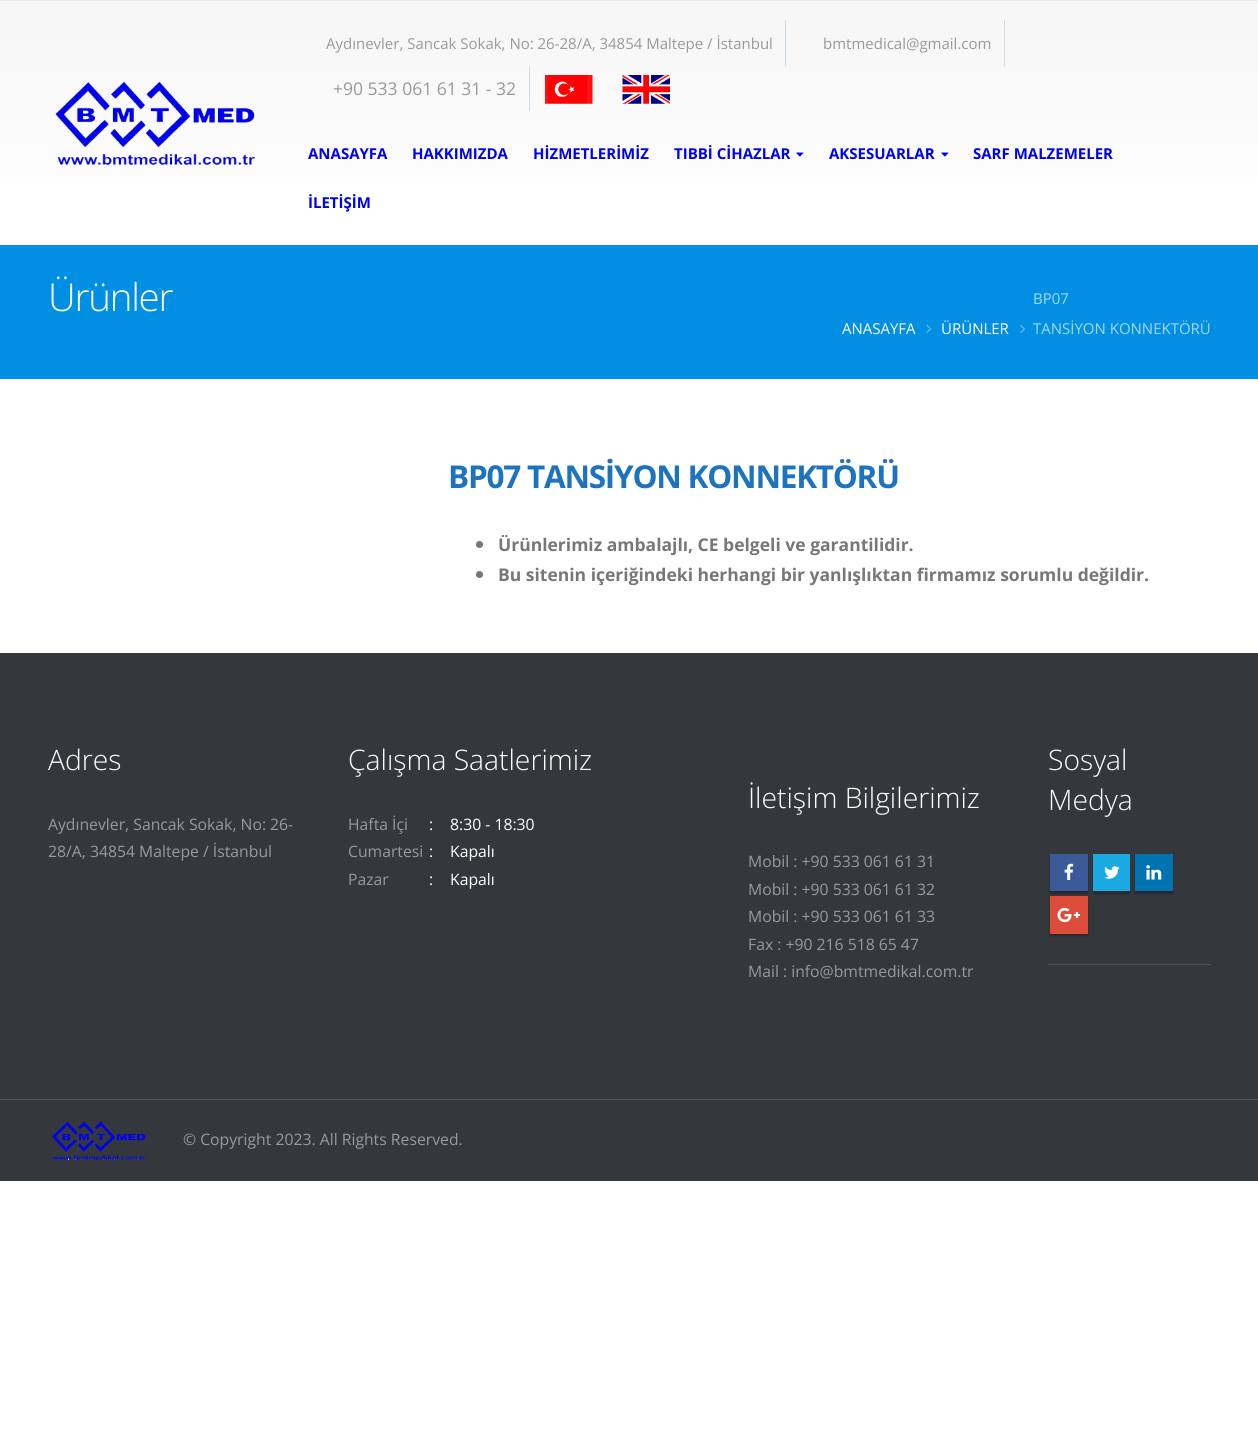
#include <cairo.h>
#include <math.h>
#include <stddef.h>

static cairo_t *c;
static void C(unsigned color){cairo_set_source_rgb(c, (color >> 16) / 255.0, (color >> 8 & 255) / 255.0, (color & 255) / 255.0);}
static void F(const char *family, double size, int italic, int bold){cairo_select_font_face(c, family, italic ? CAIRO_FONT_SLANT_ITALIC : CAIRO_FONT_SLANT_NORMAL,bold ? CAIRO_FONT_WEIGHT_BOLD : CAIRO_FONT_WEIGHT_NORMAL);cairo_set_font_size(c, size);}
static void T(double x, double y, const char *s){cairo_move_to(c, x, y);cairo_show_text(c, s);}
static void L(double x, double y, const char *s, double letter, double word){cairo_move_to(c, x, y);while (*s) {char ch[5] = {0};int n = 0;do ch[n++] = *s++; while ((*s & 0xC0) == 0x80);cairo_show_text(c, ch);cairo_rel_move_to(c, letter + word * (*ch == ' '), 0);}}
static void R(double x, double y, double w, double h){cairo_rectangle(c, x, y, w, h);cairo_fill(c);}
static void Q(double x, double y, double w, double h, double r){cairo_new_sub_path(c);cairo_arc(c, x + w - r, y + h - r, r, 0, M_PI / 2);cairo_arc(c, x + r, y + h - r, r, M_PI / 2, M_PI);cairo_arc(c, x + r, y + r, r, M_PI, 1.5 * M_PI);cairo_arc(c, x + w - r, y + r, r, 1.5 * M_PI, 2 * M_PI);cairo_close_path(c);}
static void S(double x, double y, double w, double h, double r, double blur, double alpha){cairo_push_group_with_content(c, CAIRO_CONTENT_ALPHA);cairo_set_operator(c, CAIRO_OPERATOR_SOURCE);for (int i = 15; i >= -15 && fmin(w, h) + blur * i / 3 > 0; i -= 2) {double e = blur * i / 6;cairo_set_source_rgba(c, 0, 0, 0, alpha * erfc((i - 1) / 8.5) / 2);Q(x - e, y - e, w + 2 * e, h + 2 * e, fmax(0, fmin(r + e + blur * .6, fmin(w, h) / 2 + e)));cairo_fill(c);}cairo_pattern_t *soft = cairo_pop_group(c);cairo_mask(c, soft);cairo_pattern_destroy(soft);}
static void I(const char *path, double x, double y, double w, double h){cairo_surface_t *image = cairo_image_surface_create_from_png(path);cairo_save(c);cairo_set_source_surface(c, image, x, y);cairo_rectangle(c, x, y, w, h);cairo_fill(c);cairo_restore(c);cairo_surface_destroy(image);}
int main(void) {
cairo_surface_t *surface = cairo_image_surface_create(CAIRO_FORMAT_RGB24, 1258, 1443);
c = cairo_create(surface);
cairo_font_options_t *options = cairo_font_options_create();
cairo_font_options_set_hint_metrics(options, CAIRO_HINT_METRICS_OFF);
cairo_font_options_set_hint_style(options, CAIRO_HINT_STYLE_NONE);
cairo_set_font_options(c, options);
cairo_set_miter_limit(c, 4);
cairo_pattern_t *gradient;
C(0xffffff);
cairo_paint(c);
C(0xededed);
R(0,0,1258,1);
gradient = cairo_pattern_create_linear(629,1.2,629,245);
cairo_pattern_add_color_stop_rgba(gradient,0,0.965,0.965,0.965,1);
cairo_pattern_add_color_stop_rgba(gradient,1,1,1,1,1);
cairo_set_source(c,gradient);
cairo_pattern_destroy(gradient);
R(0,1,1258,176);
I("1.png",55,81,201,84);
C(0xd1dee9);
R(785,20,1,46);
F("Open Sans",15,0,0);
C(0x999999);
T(326,49,"Aydınevler, Sancak Sokak, No: 26-28/A, 34854 Maltepe / İstanbul");
C(0xd1dee9);
R(1004,20,1,46);
C(0x999999);
T(823,49,"bmtmedical@gmail.com");
C(0xd1dee9);
R(529,66,1,45);
F("Open Sans",17.5,0,0);
C(0x999999);
T(333,95,"+90 533 061 61 31 - 32");
I("2.png",545,75,48,29);
I("3.png",622,75,48,29);
F("Open Sans",15,0,1);
C(0x0002ea);
T(308,159,"ANASAYFA");
T(412,159,"HAKKIMIZDA");
T(533,159,"HİZMETLERİMİZ");
T(674,159,"TIBBİ CİHAZLAR");
I("4.png",796,152,8,5);
T(829,159,"AKSESUARLAR");
I("4.png",941,152,8,5);
T(973,159,"SARF MALZEMELER");
T(308,208,"İLETİŞİM");
C(0x008fe2);
R(0,245,1258,134);
F("Open Sans Light",38.5,0,0);
C(0xffffff);
L(48,311,"Ürünler",-1.25,0);
F("Open Sans",15,0,0);
T(842,334,"ANASAYFA");
I("5.png",926,324,6,9);
T(941,334,"ÜRÜNLER");
I("6.png",1020,324,5,9);
C(0xa6d8f5);
T(1033,304,"BP07");
T(1033,334,"TANSİYON KONNEKTÖRÜ");
F("Open Sans",31.5,0,1);
C(0x1e73be);
L(448,488,"BP07 TANSİYON KONNEKTÖRÜ",-1.25,0);
C(0x777777);
cairo_new_path(c);
cairo_arc(c,479.5,544.5,3.5,0,2 * M_PI);
cairo_fill(c);
F("Open Sans",17.5,0,1);
T(498,551,"Ürünlerimiz ambalajlı, CE belgeli ve garantilidir.");
cairo_new_path(c);
cairo_arc(c,479.5,574.5,3.5,0,2 * M_PI);
cairo_fill(c);
T(498,581,"Bu sitenin içeriğindeki herhangi bir yanlışlıktan firmamız sorumlu değildir.");
C(0x34383d);
R(0,653,1258,528);
F("Open Sans Light",28.25,0,0);
C(0xffffff);
T(48,770,"Adres");
F("Open Sans",15.75,0,0);
C(0x999999);
T(48,830,"Aydınevler, Sancak Sokak, No: 26-");
T(48,857,"28/A, 34854 Maltepe / İstanbul");
F("Open Sans Light",28.25,0,0);
C(0xffffff);
T(348,770,"Çalışma Saatlerimiz");
F("Open Sans",15.75,0,0);
C(0x999999);
T(348,830,"Hafta İçi");
C(0xffffff);
T(429,830,":");
T(450,830,"8:30 - 18:30");
C(0x999999);
T(348,857,"Cumartesi");
C(0xffffff);
T(429,857,":");
T(450,857,"Kapalı");
C(0x999999);
T(348,885,"Pazar");
C(0xffffff);
T(429,885,":");
T(450,885,"Kapalı");
F("Open Sans Light",28.25,0,0);
T(748,808,"İletişim Bilgilerimiz");
F("Open Sans",15.75,0,0);
C(0x999999);
T(748,867,"Mobil : +90 533 061 61 31");
T(748,895,"Mobil : +90 533 061 61 32");
T(748,922,"Mobil : +90 533 061 61 33");
T(748,950,"Fax : +90 216 518 65 47");
T(748,977,"Mail : info@bmtmedikal.com.tr");
F("Open Sans Light",28.25,0,0);
C(0xffffff);
T(1048,770,"Sosyal");
T(1048,810,"Medya");
C(0x000000);
S(1050,856,38,38,0,1,.3);
C(0x3b5a9a);
R(1050,854,38,37);
I("7.png",1064,863,10,17);
C(0x000000);
S(1093,856,37,38,0,1,.3);
C(0x1aa9e1);
R(1093,854,37,37);
I("8.png",1104,866,16,13);
C(0x000000);
S(1135,856,38,38,0,1,.3);
C(0x0073b2);
R(1135,854,38,37);
I("9.png",1146,865,16,15);
C(0x000000);
S(1050,899,38,37,0,1,.3);
C(0xdd4b39);
R(1050,896,38,38);
I("10.png",1057,907,23,16);
C(0x51555a);
R(1048,964,162,1);
C(0x53585e);
R(0,1099,1258,1);
I("11.png",52,1121,94,39);
F("Open Sans",15.75,0,0);
C(0x999999);
T(183,1145,"© Copyright 2023. All Rights Reserved.");
cairo_surface_write_to_png(surface, "o.png");
cairo_font_options_destroy(options);
cairo_destroy(c);
cairo_surface_destroy(surface);
return 0;
}
